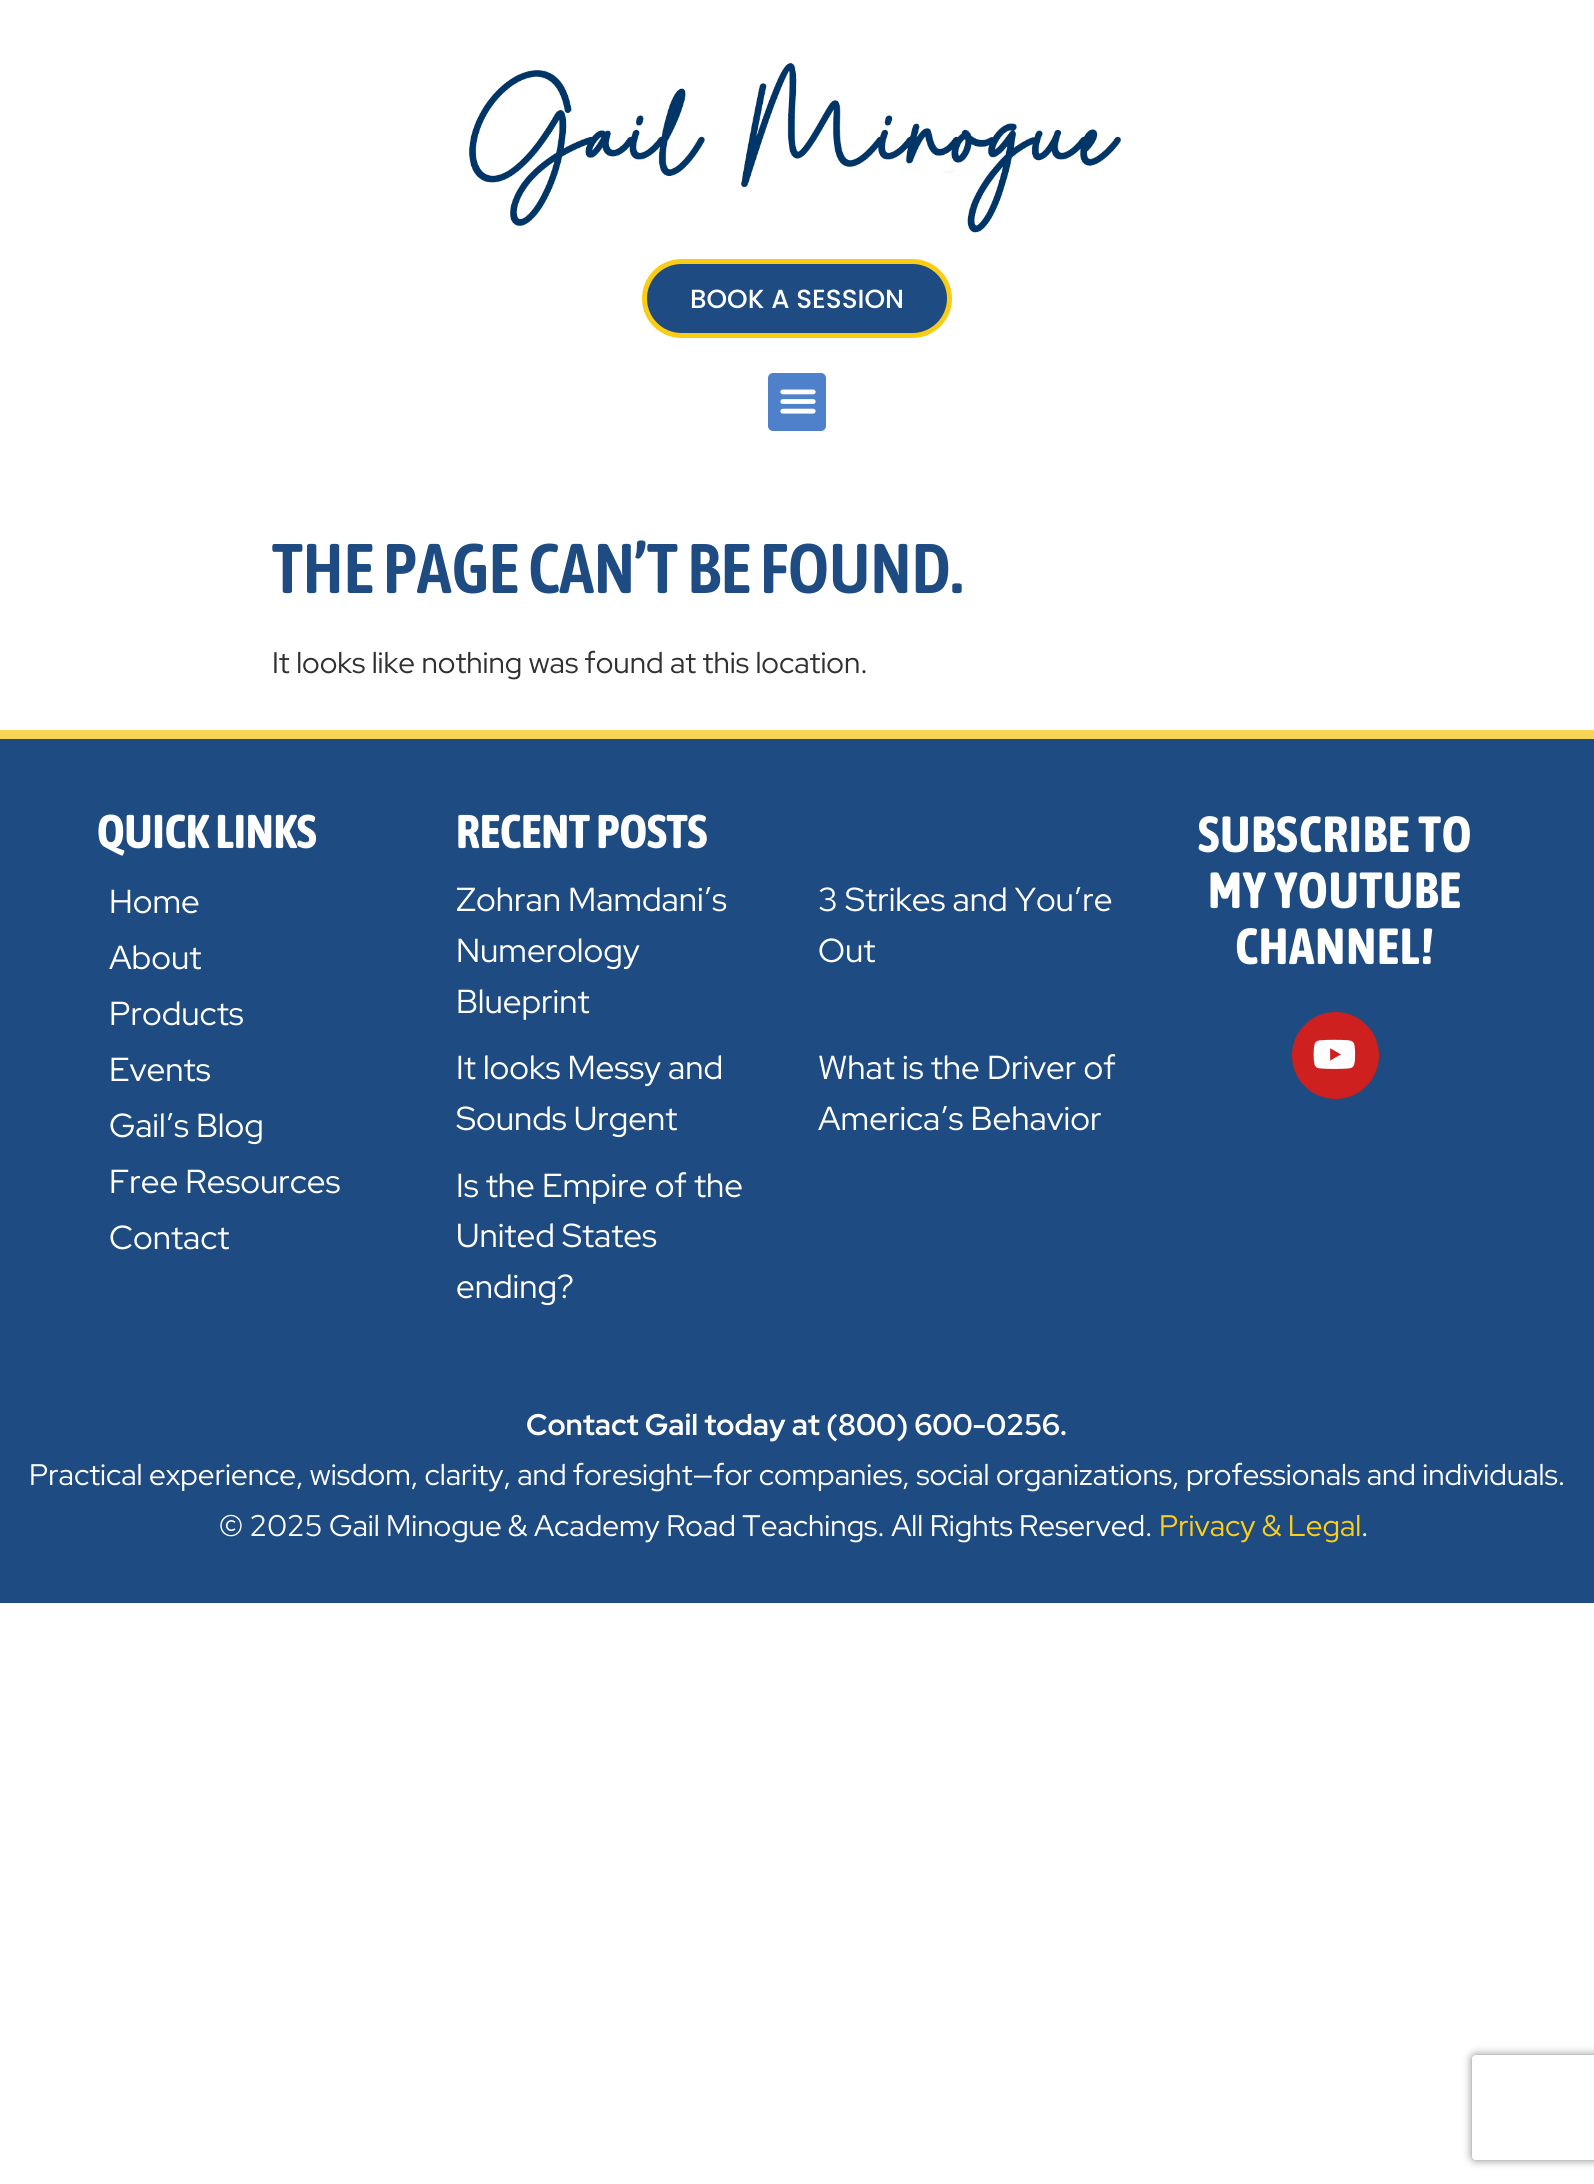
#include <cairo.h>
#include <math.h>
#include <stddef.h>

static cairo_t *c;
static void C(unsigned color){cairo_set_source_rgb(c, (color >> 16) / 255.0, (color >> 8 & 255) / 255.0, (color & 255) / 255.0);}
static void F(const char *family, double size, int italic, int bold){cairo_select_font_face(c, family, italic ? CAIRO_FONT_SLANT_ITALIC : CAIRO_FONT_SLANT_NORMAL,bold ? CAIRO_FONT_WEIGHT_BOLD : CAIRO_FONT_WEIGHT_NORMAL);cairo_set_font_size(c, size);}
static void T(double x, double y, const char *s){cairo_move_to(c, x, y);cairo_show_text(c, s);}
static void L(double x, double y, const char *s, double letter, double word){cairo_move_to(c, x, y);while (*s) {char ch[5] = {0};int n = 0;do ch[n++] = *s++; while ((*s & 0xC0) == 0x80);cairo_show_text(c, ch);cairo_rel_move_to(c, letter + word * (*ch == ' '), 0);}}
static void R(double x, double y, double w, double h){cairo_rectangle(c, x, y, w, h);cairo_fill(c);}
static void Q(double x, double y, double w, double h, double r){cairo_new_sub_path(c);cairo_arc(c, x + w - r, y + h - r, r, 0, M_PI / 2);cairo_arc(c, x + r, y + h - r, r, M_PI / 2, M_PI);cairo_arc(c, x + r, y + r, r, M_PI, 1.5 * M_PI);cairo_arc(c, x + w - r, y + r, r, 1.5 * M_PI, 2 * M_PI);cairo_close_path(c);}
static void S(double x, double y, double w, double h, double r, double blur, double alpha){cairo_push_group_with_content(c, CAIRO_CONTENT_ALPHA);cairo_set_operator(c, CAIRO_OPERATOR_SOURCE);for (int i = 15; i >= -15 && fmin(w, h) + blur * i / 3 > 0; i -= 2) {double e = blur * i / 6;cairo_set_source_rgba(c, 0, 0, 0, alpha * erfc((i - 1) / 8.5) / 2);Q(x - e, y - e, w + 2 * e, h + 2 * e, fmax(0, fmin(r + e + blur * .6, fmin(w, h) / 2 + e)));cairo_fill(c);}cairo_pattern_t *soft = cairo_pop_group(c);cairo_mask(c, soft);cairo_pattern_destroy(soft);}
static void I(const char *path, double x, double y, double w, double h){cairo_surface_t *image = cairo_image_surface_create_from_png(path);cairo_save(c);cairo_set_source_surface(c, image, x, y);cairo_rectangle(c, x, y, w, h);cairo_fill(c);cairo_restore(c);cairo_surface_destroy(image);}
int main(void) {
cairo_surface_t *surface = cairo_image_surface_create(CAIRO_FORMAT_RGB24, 1594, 2184);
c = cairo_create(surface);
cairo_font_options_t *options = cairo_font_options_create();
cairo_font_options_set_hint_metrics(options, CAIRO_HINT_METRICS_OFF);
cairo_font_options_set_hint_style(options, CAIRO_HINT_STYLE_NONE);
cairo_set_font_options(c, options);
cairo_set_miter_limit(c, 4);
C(0xffffff);
cairo_paint(c);
I("1.png",469,63,652,170);
C(0x1d4b82);
Q(644.5,261.5,305,74,37);
cairo_fill_preserve(c);
C(0xfbcc14);
cairo_set_line_width(c,5);
cairo_stroke(c);
F("Poppins Medium",26.25,0,0);
C(0xffffff);
T(690,308,"BOOK A SESSION");
C(0x4e81ca);
Q(768,373,58,58,5);
cairo_fill(c);
I("2.png",780,389,36,25);
F("Asap Condensed SemiBold",70,0,0);
C(0x1d4b82);
T(272,593,"THE PAGE CAN’T BE FOUND.");
F("Red Hat Display",29.75,0,0);
C(0x303030);
T(272,673,"It looks like nothing was found at this location.");
C(0xf7d455);
R(0,730,1594,9);
C(0x1d4b82);
R(0,739,1594,864);
F("Asap Condensed",47.25,0,1);
C(0xffffff);
T(97,848,"QUICK LINKS");
F("Red Hat Display",33.25,0,0);
T(109,913,"Home");
T(109,969,"About");
T(109,1025,"Products");
T(109,1081,"Events");
T(109,1137,"Gail’s Blog");
T(109,1193,"Free Resources");
T(109,1249,"Contact");
F("Asap Condensed",47.25,0,1);
T(456,848,"RECENT POSTS");
cairo_save(c);
cairo_rectangle(c,457,875,318,152);
cairo_clip(c);
F("Red Hat Display",33.25,0,0);
T(456,911,"Zohran Mamdani’s");
cairo_restore(c);
F("Red Hat Display",33.25,0,0);
T(456,962,"Numerology");
T(456,1013,"Blueprint");
T(818,911,"3 Strikes and You’re");
T(818,962,"Out");
T(456,1079,"It looks Messy and");
T(456,1130,"Sounds Urgent");
T(818,1079,"What is the Driver of");
T(818,1130,"America’s Behavior");
T(456,1197,"Is the Empire of the");
T(456,1247,"United States");
T(456,1298,"ending?");
F("Asap Condensed",50.75,0,1);
L(1198,852,"SUBSCRIBE TO",1,0);
L(1208,908,"MY YOUTUBE",1,0);
L(1235,964,"CHANNEL!",1,0);
C(0xcd201f);
cairo_new_path(c);
cairo_arc(c,1335.5,1055.5,43.5,0,2 * M_PI);
cairo_fill(c);
I("3.png",1313,1039,43,30);
F("Red Hat Display",29.75,0,1);
C(0xffffff);
T(526,1435,"Contact Gail today at (800) 600-0256.");
F("Red Hat Display",29.75,0,0);
T(29,1485,"Practical experience, wisdom, clarity, and foresight—for companies, social organizations, professionals and individuals.");
T(219,1536,"© 2025 Gail Minogue & Academy Road Teachings. All Rights Reserved.");
C(0xffcf16);
T(1159,1536,"Privacy & Legal");
C(0xffffff);
T(1361,1536,".");
cairo_save(c);
cairo_set_fill_rule(c,CAIRO_FILL_RULE_EVEN_ODD);
cairo_new_path(c);
cairo_move_to(c,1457,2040);
cairo_line_to(c,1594,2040);
cairo_line_to(c,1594,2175);
cairo_line_to(c,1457,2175);
cairo_close_path(c);
cairo_move_to(c,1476,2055);
cairo_line_to(c,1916,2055);
cairo_curve_to(c,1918,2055,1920,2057,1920,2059);
cairo_line_to(c,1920,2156);
cairo_curve_to(c,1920,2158,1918,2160,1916,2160);
cairo_line_to(c,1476,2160);
cairo_curve_to(c,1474,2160,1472,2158,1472,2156);
cairo_line_to(c,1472,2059);
cairo_curve_to(c,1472,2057,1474,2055,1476,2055);
cairo_close_path(c);
cairo_clip(c);
C(0x808080);
S(1472,2055,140,105,4,4.5,1);
cairo_restore(c);
cairo_surface_write_to_png(surface, "o.png");
cairo_font_options_destroy(options);
cairo_destroy(c);
cairo_surface_destroy(surface);
return 0;
}
